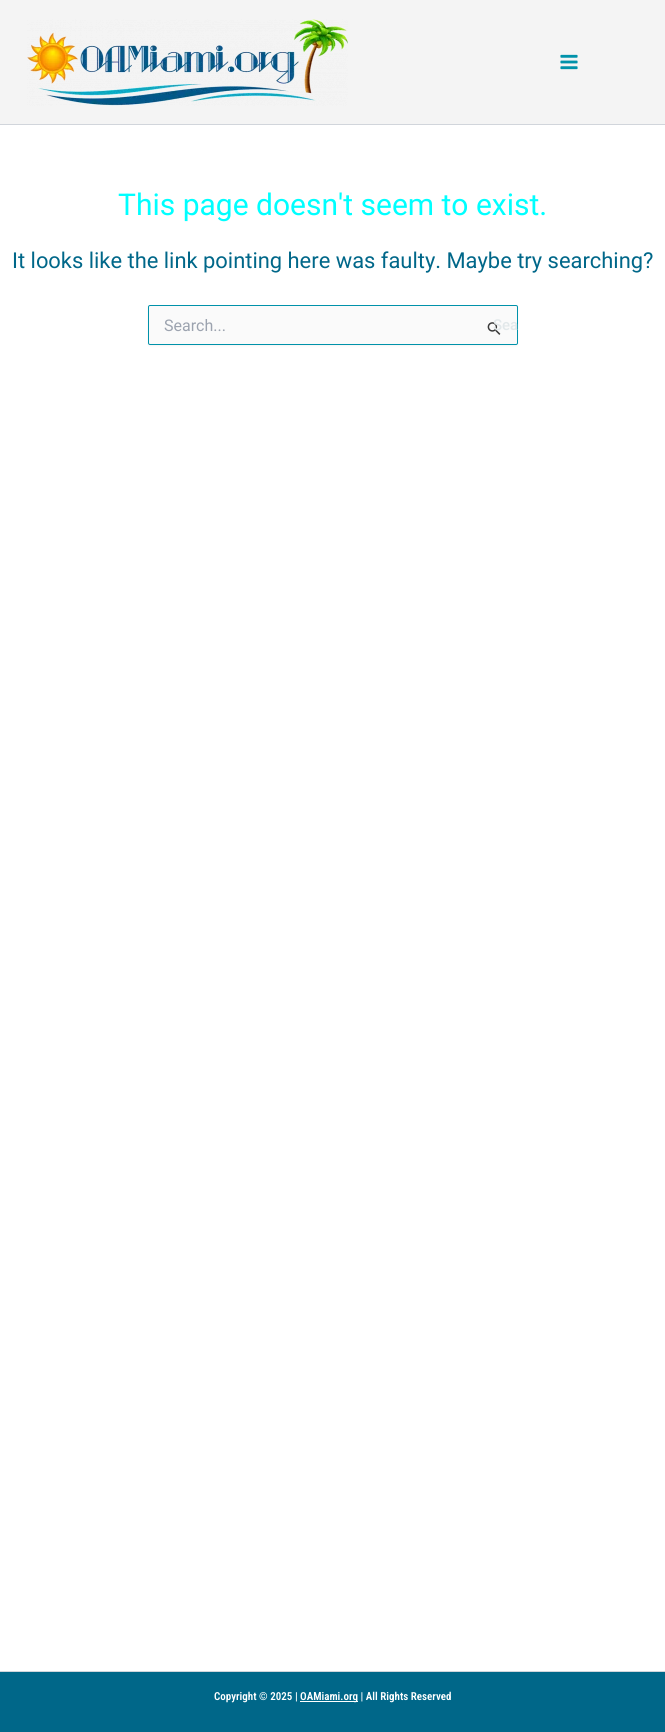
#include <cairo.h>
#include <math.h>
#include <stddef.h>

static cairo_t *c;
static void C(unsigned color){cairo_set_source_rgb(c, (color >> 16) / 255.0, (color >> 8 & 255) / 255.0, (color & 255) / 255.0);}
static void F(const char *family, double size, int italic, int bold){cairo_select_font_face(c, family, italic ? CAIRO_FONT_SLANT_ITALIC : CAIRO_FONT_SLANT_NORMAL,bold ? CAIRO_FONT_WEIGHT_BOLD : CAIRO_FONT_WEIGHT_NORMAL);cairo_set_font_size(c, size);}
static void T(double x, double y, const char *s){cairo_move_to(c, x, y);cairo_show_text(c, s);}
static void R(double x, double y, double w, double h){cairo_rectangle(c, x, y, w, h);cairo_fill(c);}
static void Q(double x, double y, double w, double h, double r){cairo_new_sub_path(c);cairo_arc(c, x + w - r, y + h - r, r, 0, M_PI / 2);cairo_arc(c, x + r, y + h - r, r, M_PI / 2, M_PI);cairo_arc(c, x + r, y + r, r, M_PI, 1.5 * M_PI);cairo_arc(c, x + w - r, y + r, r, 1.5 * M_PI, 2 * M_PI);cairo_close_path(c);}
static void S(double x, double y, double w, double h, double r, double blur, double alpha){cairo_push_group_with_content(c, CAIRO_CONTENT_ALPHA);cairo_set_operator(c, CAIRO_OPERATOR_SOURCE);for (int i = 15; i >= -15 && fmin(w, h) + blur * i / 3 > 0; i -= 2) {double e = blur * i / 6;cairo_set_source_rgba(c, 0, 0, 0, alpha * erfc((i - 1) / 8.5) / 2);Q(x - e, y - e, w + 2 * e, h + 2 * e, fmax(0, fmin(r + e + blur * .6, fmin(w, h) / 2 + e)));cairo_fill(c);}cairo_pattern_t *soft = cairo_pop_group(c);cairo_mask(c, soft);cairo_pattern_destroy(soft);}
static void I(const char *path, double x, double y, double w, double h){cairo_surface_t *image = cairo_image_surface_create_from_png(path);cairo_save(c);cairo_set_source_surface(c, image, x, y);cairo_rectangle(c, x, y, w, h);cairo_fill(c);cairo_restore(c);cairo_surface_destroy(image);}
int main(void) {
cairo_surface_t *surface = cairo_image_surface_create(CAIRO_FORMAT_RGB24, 665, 1732);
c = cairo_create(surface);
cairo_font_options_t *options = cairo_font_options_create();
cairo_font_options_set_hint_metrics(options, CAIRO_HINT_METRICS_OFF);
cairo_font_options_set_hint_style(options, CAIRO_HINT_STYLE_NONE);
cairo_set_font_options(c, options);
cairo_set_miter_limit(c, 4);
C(0xffffff);
cairo_paint(c);
C(0xf4f4f4);
R(0,0,665,124);
C(0xd1d5db);
R(0,124,665,1);
I("1.png",27,19,321,87);
I("2.png",560,54,18,16);
F("Roboto",30,0,0);
C(0x00ffff);
T(118,215,"This page doesn't seem to exist.");
F("Roboto",21.9,0,0);
C(0x006789);
T(12,268,"It looks like the link pointing here was faulty. Maybe try searching?");
C(0x000000);
S(148,306,370,40,2,1,.05);
C(0xfafafa);
Q(148.5,305.5,369,39,1.5);
cairo_fill_preserve(c);
C(0x0092aa);
cairo_set_line_width(c,1);
cairo_stroke(c);
F("Roboto",16,0,0);
C(0x9ca3af);
T(164,331,"Search...");
I("3.png",487,322,14,13);
F("Roboto Medium",15,0,0);
C(0xe2e8ea);
T(493,330,"Sea");
C(0x006789);
R(0,1672,665,60);
C(0xd1d5db);
R(0,1671,665,1);
F("Roboto Condensed SemiBold",11,0,0);
C(0xffffff);
T(214,1700,"Copyright © 2025 |");
R(300,1701,58,1);
T(300,1700,"OAMiami.org | All Rights Reserved");
cairo_surface_write_to_png(surface, "o.png");
cairo_font_options_destroy(options);
cairo_destroy(c);
cairo_surface_destroy(surface);
return 0;
}
